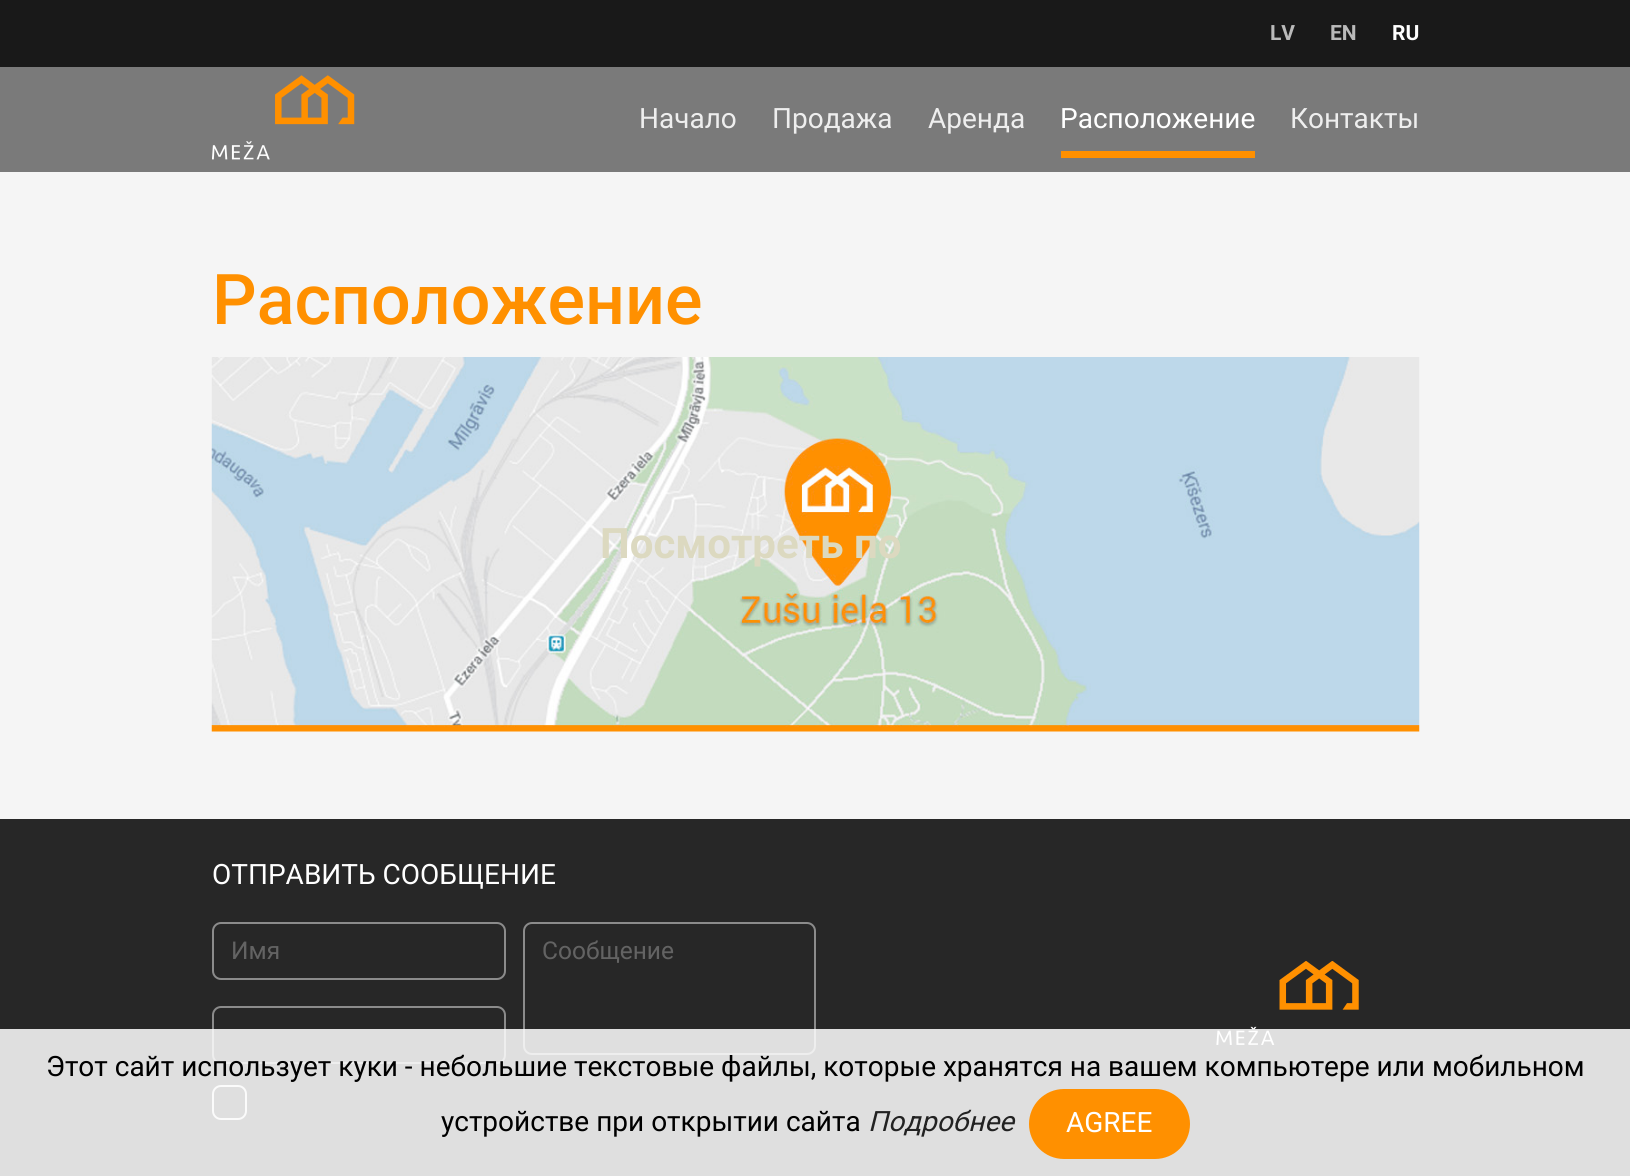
#include <cairo.h>
#include <math.h>
#include <stddef.h>

static cairo_t *c;
static void C(unsigned color){cairo_set_source_rgb(c, (color >> 16) / 255.0, (color >> 8 & 255) / 255.0, (color & 255) / 255.0);}
static void F(const char *family, double size, int italic, int bold){cairo_select_font_face(c, family, italic ? CAIRO_FONT_SLANT_ITALIC : CAIRO_FONT_SLANT_NORMAL,bold ? CAIRO_FONT_WEIGHT_BOLD : CAIRO_FONT_WEIGHT_NORMAL);cairo_set_font_size(c, size);}
static void T(double x, double y, const char *s){cairo_move_to(c, x, y);cairo_show_text(c, s);}
static void R(double x, double y, double w, double h){cairo_rectangle(c, x, y, w, h);cairo_fill(c);}
static void Q(double x, double y, double w, double h, double r){cairo_new_sub_path(c);cairo_arc(c, x + w - r, y + h - r, r, 0, M_PI / 2);cairo_arc(c, x + r, y + h - r, r, M_PI / 2, M_PI);cairo_arc(c, x + r, y + r, r, M_PI, 1.5 * M_PI);cairo_arc(c, x + w - r, y + r, r, 1.5 * M_PI, 2 * M_PI);cairo_close_path(c);}
static void I(const char *path, double x, double y, double w, double h){cairo_surface_t *image = cairo_image_surface_create_from_png(path);cairo_save(c);cairo_set_source_surface(c, image, x, y);cairo_rectangle(c, x, y, w, h);cairo_fill(c);cairo_restore(c);cairo_surface_destroy(image);}
int main(void) {
cairo_surface_t *surface = cairo_image_surface_create(CAIRO_FORMAT_RGB24, 1630, 1176);
c = cairo_create(surface);
cairo_font_options_t *options = cairo_font_options_create();
cairo_font_options_set_hint_metrics(options, CAIRO_HINT_METRICS_OFF);
cairo_font_options_set_hint_style(options, CAIRO_HINT_STYLE_NONE);
cairo_set_font_options(c, options);
cairo_set_miter_limit(c, 4);
C(0xf5f5f5);
cairo_paint(c);
C(0x7a7a7a);
R(0,67,1630,105);
C(0x191919);
R(0,0,1630,67);
F("Roboto",21,0,1);
C(0xbababa);
T(1270,40,"LV");
T(1330,40,"EN");
C(0xffffff);
T(1392,40,"RU");
I("1.png",212,75,143,85);
F("Roboto",28,0,0);
C(0xeeeeee);
T(639,128,"Начало");
T(772,128,"Продажа");
T(928,128,"Аренда");
C(0xffffff);
T(1060,128,"Расположение");
C(0xff9000);
R(1061,151,194,7);
C(0xeeeeee);
T(1290,128,"Контакты");
F("Roboto Medium",70,0,0);
C(0xff9000);
T(212,324,"Расположение");
I("2.png",211,357,1209,375);
F("Roboto",42,0,1);
C(0xdcd9c0);
T(600,558,"Посмотреть по");
C(0x272727);
R(0,819,1630,357);
F("Roboto",28,0,0);
C(0xffffff);
T(212,884,"ОТПРАВИТЬ СООБЩЕНИЕ");
Q(213,923,292,56,8);
C(0x8b8b8b);
cairo_stroke(c);
F("Roboto",24.5,0,0);
C(0x636363);
T(231,959,"Имя");
Q(213,1007,292,56,8);
C(0x8b8b8b);
cairo_stroke(c);
Q(524,923,291,131,8);
cairo_stroke(c);
C(0x636363);
T(542,959,"Сообщение");
Q(213,1086,33,33,8);
C(0xe1e1e1);
cairo_stroke(c);
I("3.png",1216,961,143,84);
cairo_set_source_rgba(c,1,1,1,0.85);
R(0,1029,1630,147);
F("Roboto",28,0,0);
C(0x000000);
T(46,1076,"Этот сайт использует куки - небольшие текстовые файлы, которые хранятся на вашем компьютере или мобильном");
T(441,1131,"устройстве при открытии сайта");
F("Roboto",28,1,0);
C(0x222222);
T(868,1131,"Подробнее");
C(0xff9000);
Q(1030,1090,159,68,34);
cairo_fill_preserve(c);
cairo_stroke(c);
F("Roboto",28,0,0);
C(0xffffff);
T(1066,1132,"AGREE");
cairo_surface_write_to_png(surface, "o.png");
cairo_font_options_destroy(options);
cairo_destroy(c);
cairo_surface_destroy(surface);
return 0;
}
